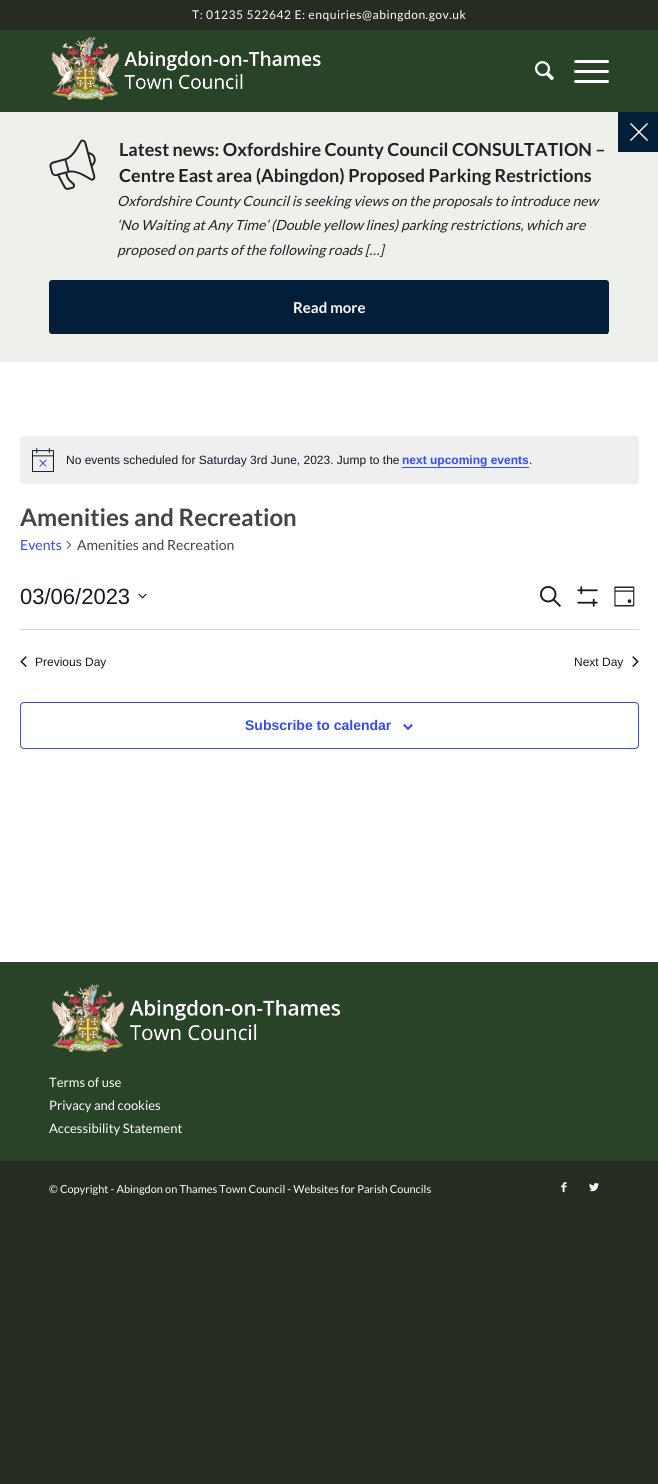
#include <cairo.h>
#include <math.h>
#include <stddef.h>

static cairo_t *c;
static void C(unsigned color){cairo_set_source_rgb(c, (color >> 16) / 255.0, (color >> 8 & 255) / 255.0, (color & 255) / 255.0);}
static void F(const char *family, double size, int italic, int bold){cairo_select_font_face(c, family, italic ? CAIRO_FONT_SLANT_ITALIC : CAIRO_FONT_SLANT_NORMAL,bold ? CAIRO_FONT_WEIGHT_BOLD : CAIRO_FONT_WEIGHT_NORMAL);cairo_set_font_size(c, size);}
static void T(double x, double y, const char *s){cairo_move_to(c, x, y);cairo_show_text(c, s);}
static void L(double x, double y, const char *s, double letter, double word){cairo_move_to(c, x, y);while (*s) {char ch[5] = {0};int n = 0;do ch[n++] = *s++; while ((*s & 0xC0) == 0x80);cairo_show_text(c, ch);cairo_rel_move_to(c, letter + word * (*ch == ' '), 0);}}
static void R(double x, double y, double w, double h){cairo_rectangle(c, x, y, w, h);cairo_fill(c);}
static void Q(double x, double y, double w, double h, double r){cairo_new_sub_path(c);cairo_arc(c, x + w - r, y + h - r, r, 0, M_PI / 2);cairo_arc(c, x + r, y + h - r, r, M_PI / 2, M_PI);cairo_arc(c, x + r, y + r, r, M_PI, 1.5 * M_PI);cairo_arc(c, x + w - r, y + r, r, 1.5 * M_PI, 2 * M_PI);cairo_close_path(c);}
static void I(const char *path, double x, double y, double w, double h){cairo_surface_t *image = cairo_image_surface_create_from_png(path);cairo_save(c);cairo_set_source_surface(c, image, x, y);cairo_rectangle(c, x, y, w, h);cairo_fill(c);cairo_restore(c);cairo_surface_destroy(image);}
int main(void) {
cairo_surface_t *surface = cairo_image_surface_create(CAIRO_FORMAT_RGB24, 658, 1484);
c = cairo_create(surface);
cairo_font_options_t *options = cairo_font_options_create();
cairo_font_options_set_hint_metrics(options, CAIRO_HINT_METRICS_OFF);
cairo_font_options_set_hint_style(options, CAIRO_HINT_STYLE_NONE);
cairo_set_font_options(c, options);
cairo_set_miter_limit(c, 4);
C(0x262d20);
cairo_paint(c);
F("Lato",12.1,0,0);
C(0xffffff);
L(192,19,"T: 01235 522642 E: enquiries@abingdon.gov.uk",.5,0);
C(0x284328);
R(0,30,658,82);
I("1.png",51,36,270,64);
I("2.png",535,61,19,20);
C(0xffffff);
Q(574,70,35,3,1.5);
cairo_fill(c);
Q(574,60,35,3,1.5);
cairo_fill(c);
Q(574,80,35,3,1.5);
cairo_fill(c);
R(0,362,658,600);
C(0xeef0ec);
R(0,112,658,250);
C(0x021e39);
R(618,112,40,40);
C(0xffffff);
cairo_new_path(c);
cairo_move_to(c,647,123);
cairo_line_to(c,648,124);
cairo_line_to(c,631,141);
cairo_line_to(c,630,140);
cairo_close_path(c);
cairo_fill(c);
cairo_new_path(c);
cairo_move_to(c,648,140);
cairo_line_to(c,647,141);
cairo_line_to(c,630,124);
cairo_line_to(c,631,123);
cairo_close_path(c);
cairo_fill(c);
I("3.png",49,139,47,51);
F("Lato",18,0,1);
C(0x222222);
T(119,156,"Latest news: Oxfordshire County Council CONSULTATION –");
T(119,182,"Centre East area (Abingdon) Proposed Parking Restrictions");
F("Lato",14,1,0);
T(117,206,"Oxfordshire County Council is seeking views on the proposals to introduce new");
T(117,230,"‘No Waiting at Any Time’ (Double yellow lines) parking restrictions, which are");
T(117,255,"proposed on parts of the following roads […]");
C(0x021e39);
Q(49,280,560,54,3);
cairo_fill(c);
R(51,333,557,1);
F("Lato",15,0,1);
C(0xffffff);
T(293,313,"Read more");
C(0xefeff0);
Q(20,436,619,48,4);
cairo_fill(c);
I("4.png",32,448,22,24);
F("Liberation Sans",12,0,0);
C(0x141827);
T(66,464,"No events scheduled for Saturday 3rd June, 2023. Jump to the");
F("Liberation Sans",12,0,1);
C(0x334aff);
T(402,464,"next upcoming events");
R(402,467,127,1);
F("Liberation Sans",12,0,0);
C(0x141827);
T(529,464,".");
F("Lato",24,0,1);
C(0x444444);
T(20,526,"Amenities and Recreation");
F("Lato",14,0,0);
C(0x334aff);
T(20,550,"Events");
I("5.png",66,541,6,8);
C(0x444444);
T(77,550,"Amenities and Recreation");
F("Liberation Sans",22,0,0);
C(0x141827);
T(20,604,"03/06/2023");
I("6.png",138,593,9,6);
I("7.png",540,586,21,21);
I("8.png",577,586,21,21);
I("9.png",614,586,21,21);
C(0xd5d5d5);
R(20,629,619,1);
I("10.png",20,656,7,11);
F("Liberation Sans",12,0,0);
C(0x141827);
T(35,666,"Previous Day");
T(574,666,"Next Day");
I("11.png",632,656,7,11);
Q(20.5,702.5,618,46,3.5);
C(0x334aff);
cairo_set_line_width(c,1);
cairo_stroke(c);
F("Liberation Sans",14,0,1);
T(245,730,"Subscribe to calendar");
I("12.png",403,724,10,6);
C(0x284328);
R(0,962,658,199);
I("13.png",52,984,289,69);
F("Lato",13,0,0);
C(0xffffff);
T(49,1087,"Terms of use");
T(49,1110,"Privacy and cookies");
T(49,1133,"Accessibility Statement");
F("Lato",11,0,0);
T(49,1193,"© Copyright - Abingdon on Thames Town Council - Websites for Parish Councils");
I("14.png",561,1182,6,11);
I("15.png",589,1183,10,9);
cairo_surface_write_to_png(surface, "o.png");
cairo_font_options_destroy(options);
cairo_destroy(c);
cairo_surface_destroy(surface);
return 0;
}
